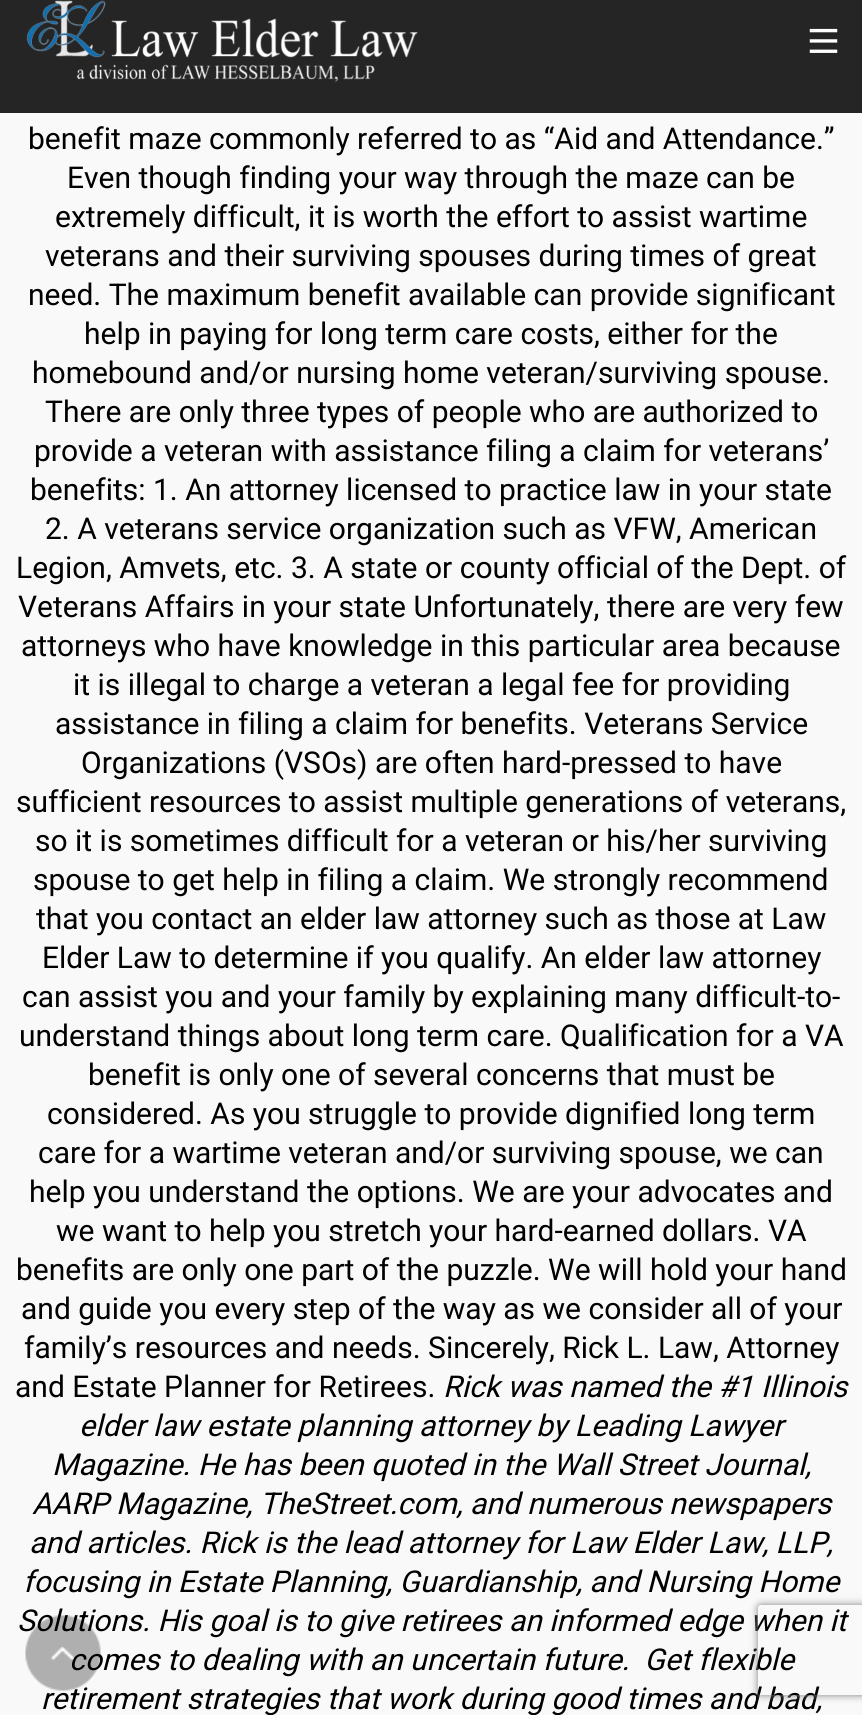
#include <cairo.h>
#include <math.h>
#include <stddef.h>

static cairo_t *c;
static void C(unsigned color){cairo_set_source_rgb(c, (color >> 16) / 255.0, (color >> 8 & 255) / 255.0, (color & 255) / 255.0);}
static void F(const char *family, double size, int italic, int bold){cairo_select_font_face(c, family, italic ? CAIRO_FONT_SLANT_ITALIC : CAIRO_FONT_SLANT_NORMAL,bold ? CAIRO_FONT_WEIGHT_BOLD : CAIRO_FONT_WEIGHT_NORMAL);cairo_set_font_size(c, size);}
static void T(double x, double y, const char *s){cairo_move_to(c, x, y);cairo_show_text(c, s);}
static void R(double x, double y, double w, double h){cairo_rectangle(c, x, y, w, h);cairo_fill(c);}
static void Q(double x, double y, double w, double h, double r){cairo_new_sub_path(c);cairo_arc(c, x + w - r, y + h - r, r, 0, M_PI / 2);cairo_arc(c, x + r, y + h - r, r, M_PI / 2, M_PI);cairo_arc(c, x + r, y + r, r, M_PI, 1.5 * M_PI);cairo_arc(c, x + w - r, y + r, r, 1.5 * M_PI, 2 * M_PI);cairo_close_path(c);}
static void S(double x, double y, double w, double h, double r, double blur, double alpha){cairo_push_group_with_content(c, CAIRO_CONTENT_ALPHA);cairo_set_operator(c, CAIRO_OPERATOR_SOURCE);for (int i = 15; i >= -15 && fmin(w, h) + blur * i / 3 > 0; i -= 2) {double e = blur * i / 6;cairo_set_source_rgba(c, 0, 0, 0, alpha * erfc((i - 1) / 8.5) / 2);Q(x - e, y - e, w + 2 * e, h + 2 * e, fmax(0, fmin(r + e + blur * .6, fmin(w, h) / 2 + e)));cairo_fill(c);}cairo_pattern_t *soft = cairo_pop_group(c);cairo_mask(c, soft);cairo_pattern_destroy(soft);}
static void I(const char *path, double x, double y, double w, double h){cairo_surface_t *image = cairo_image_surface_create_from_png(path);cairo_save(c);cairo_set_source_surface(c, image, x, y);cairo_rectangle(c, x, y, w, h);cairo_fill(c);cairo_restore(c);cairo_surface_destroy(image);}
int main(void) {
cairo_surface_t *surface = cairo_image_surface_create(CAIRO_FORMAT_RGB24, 862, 1715);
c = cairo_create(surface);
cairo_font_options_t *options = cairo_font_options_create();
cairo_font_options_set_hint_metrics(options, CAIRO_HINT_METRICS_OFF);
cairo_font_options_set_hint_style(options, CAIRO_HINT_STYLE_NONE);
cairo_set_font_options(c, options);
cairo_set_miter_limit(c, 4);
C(0xf9f9f9);
cairo_paint(c);
C(0x252525);
R(0,0,862,113);
I("1.png",26,0,392,82);
I("2.png",809,28,29,25);
F("Roboto",30,0,0);
C(0x000000);
T(28,149,"benefit maze commonly referred to as “Aid and Attendance.”");
T(67,188,"Even though finding your way through the maze can be");
T(55,227,"extremely difficult, it is worth the effort to assist wartime");
T(45,266,"veterans and their surviving spouses during times of great");
T(28,305,"need. The maximum benefit available can provide significant");
T(84,344,"help in paying for long term care costs, either for the");
T(32,383,"homebound and/or nursing home veteran/surviving spouse.");
T(45,422,"There are only three types of people who are authorized to");
T(34,461,"provide a veteran with assistance filing a claim for veterans’");
T(30,500,"benefits: 1. An attorney licensed to practice law in your state");
T(45,539,"2. A veterans service organization such as VFW, American");
T(16,578,"Legion, Amvets, etc. 3. A state or county official of the Dept. of");
T(18,617,"Veterans Affairs in your state Unfortunately, there are very few");
T(21,656,"attorneys who have knowledge in this particular area because");
T(73,695,"it is illegal to charge a veteran a legal fee for providing");
T(55,734,"assistance in filing a claim for benefits. Veterans Service");
T(81,773,"Organizations (VSOs) are often hard-pressed to have");
T(16,812,"sufficient resources to assist multiple generations of veterans,");
T(35,851,"so it is sometimes difficult for a veteran or his/her surviving");
T(33,890,"spouse to get help in filing a claim. We strongly recommend");
T(36,929,"that you contact an elder law attorney such as those at Law");
T(42,968,"Elder Law to determine if you qualify. An elder law attorney");
T(22,1007,"can assist you and your family by explaining many difficult-to-");
T(19,1046,"understand things about long term care. Qualification for a VA");
T(88,1085,"benefit is only one of several concerns that must be");
T(47,1124,"considered. As you struggle to provide dignified long term");
T(38,1163,"care for a wartime veteran and/or surviving spouse, we can");
T(29,1202,"help you understand the options. We are your advocates and");
T(56,1241,"we want to help you stretch your hard-earned dollars. VA");
T(16,1280,"benefits are only one part of the puzzle. We will hold your hand");
T(21,1319,"and guide you every step of the way as we consider all of your");
T(24,1358,"family’s resources and needs. Sincerely, Rick L. Law, Attorney");
T(15,1397,"and Estate Planner for Retirees.");
F("Roboto",30,1,0);
T(443,1397,"Rick was named the #1 Illinois");
T(79,1436,"elder law estate planning attorney by Leading Lawyer");
T(52,1475,"Magazine. He has been quoted in the Wall Street Journal,");
T(32,1514,"AARP Magazine, TheStreet.com, and numerous newspapers");
T(29,1553,"and articles. Rick is the lead attorney for Law Elder Law, LLP,");
T(23,1592,"focusing in Estate Planning, Guardianship, and Nursing Home");
T(17,1631,"Solutions. His goal is to give retirees an informed edge when it");
T(69,1670,"comes to dealing with an uncertain future.  Get flexible");
T(41,1709,"retirement strategies that work during good times and bad,");
I("3.png",25,1615,76,76);
cairo_save(c);
cairo_set_fill_rule(c,CAIRO_FILL_RULE_EVEN_ODD);
cairo_new_path(c);
cairo_move_to(c,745,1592);
cairo_line_to(c,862,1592);
cairo_line_to(c,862,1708);
cairo_line_to(c,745,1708);
cairo_close_path(c);
cairo_move_to(c,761,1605);
cairo_line_to(c,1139,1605);
cairo_curve_to(c,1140.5,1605,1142,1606.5,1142,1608);
cairo_line_to(c,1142,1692);
cairo_curve_to(c,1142,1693.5,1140.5,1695,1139,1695);
cairo_line_to(c,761,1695);
cairo_curve_to(c,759.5,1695,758,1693.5,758,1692);
cairo_line_to(c,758,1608);
cairo_curve_to(c,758,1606.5,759.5,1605,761,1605);
cairo_close_path(c);
cairo_clip(c);
C(0x808080);
S(758,1605,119,90,3,4,1);
cairo_restore(c);
cairo_surface_write_to_png(surface, "o.png");
cairo_font_options_destroy(options);
cairo_destroy(c);
cairo_surface_destroy(surface);
return 0;
}
